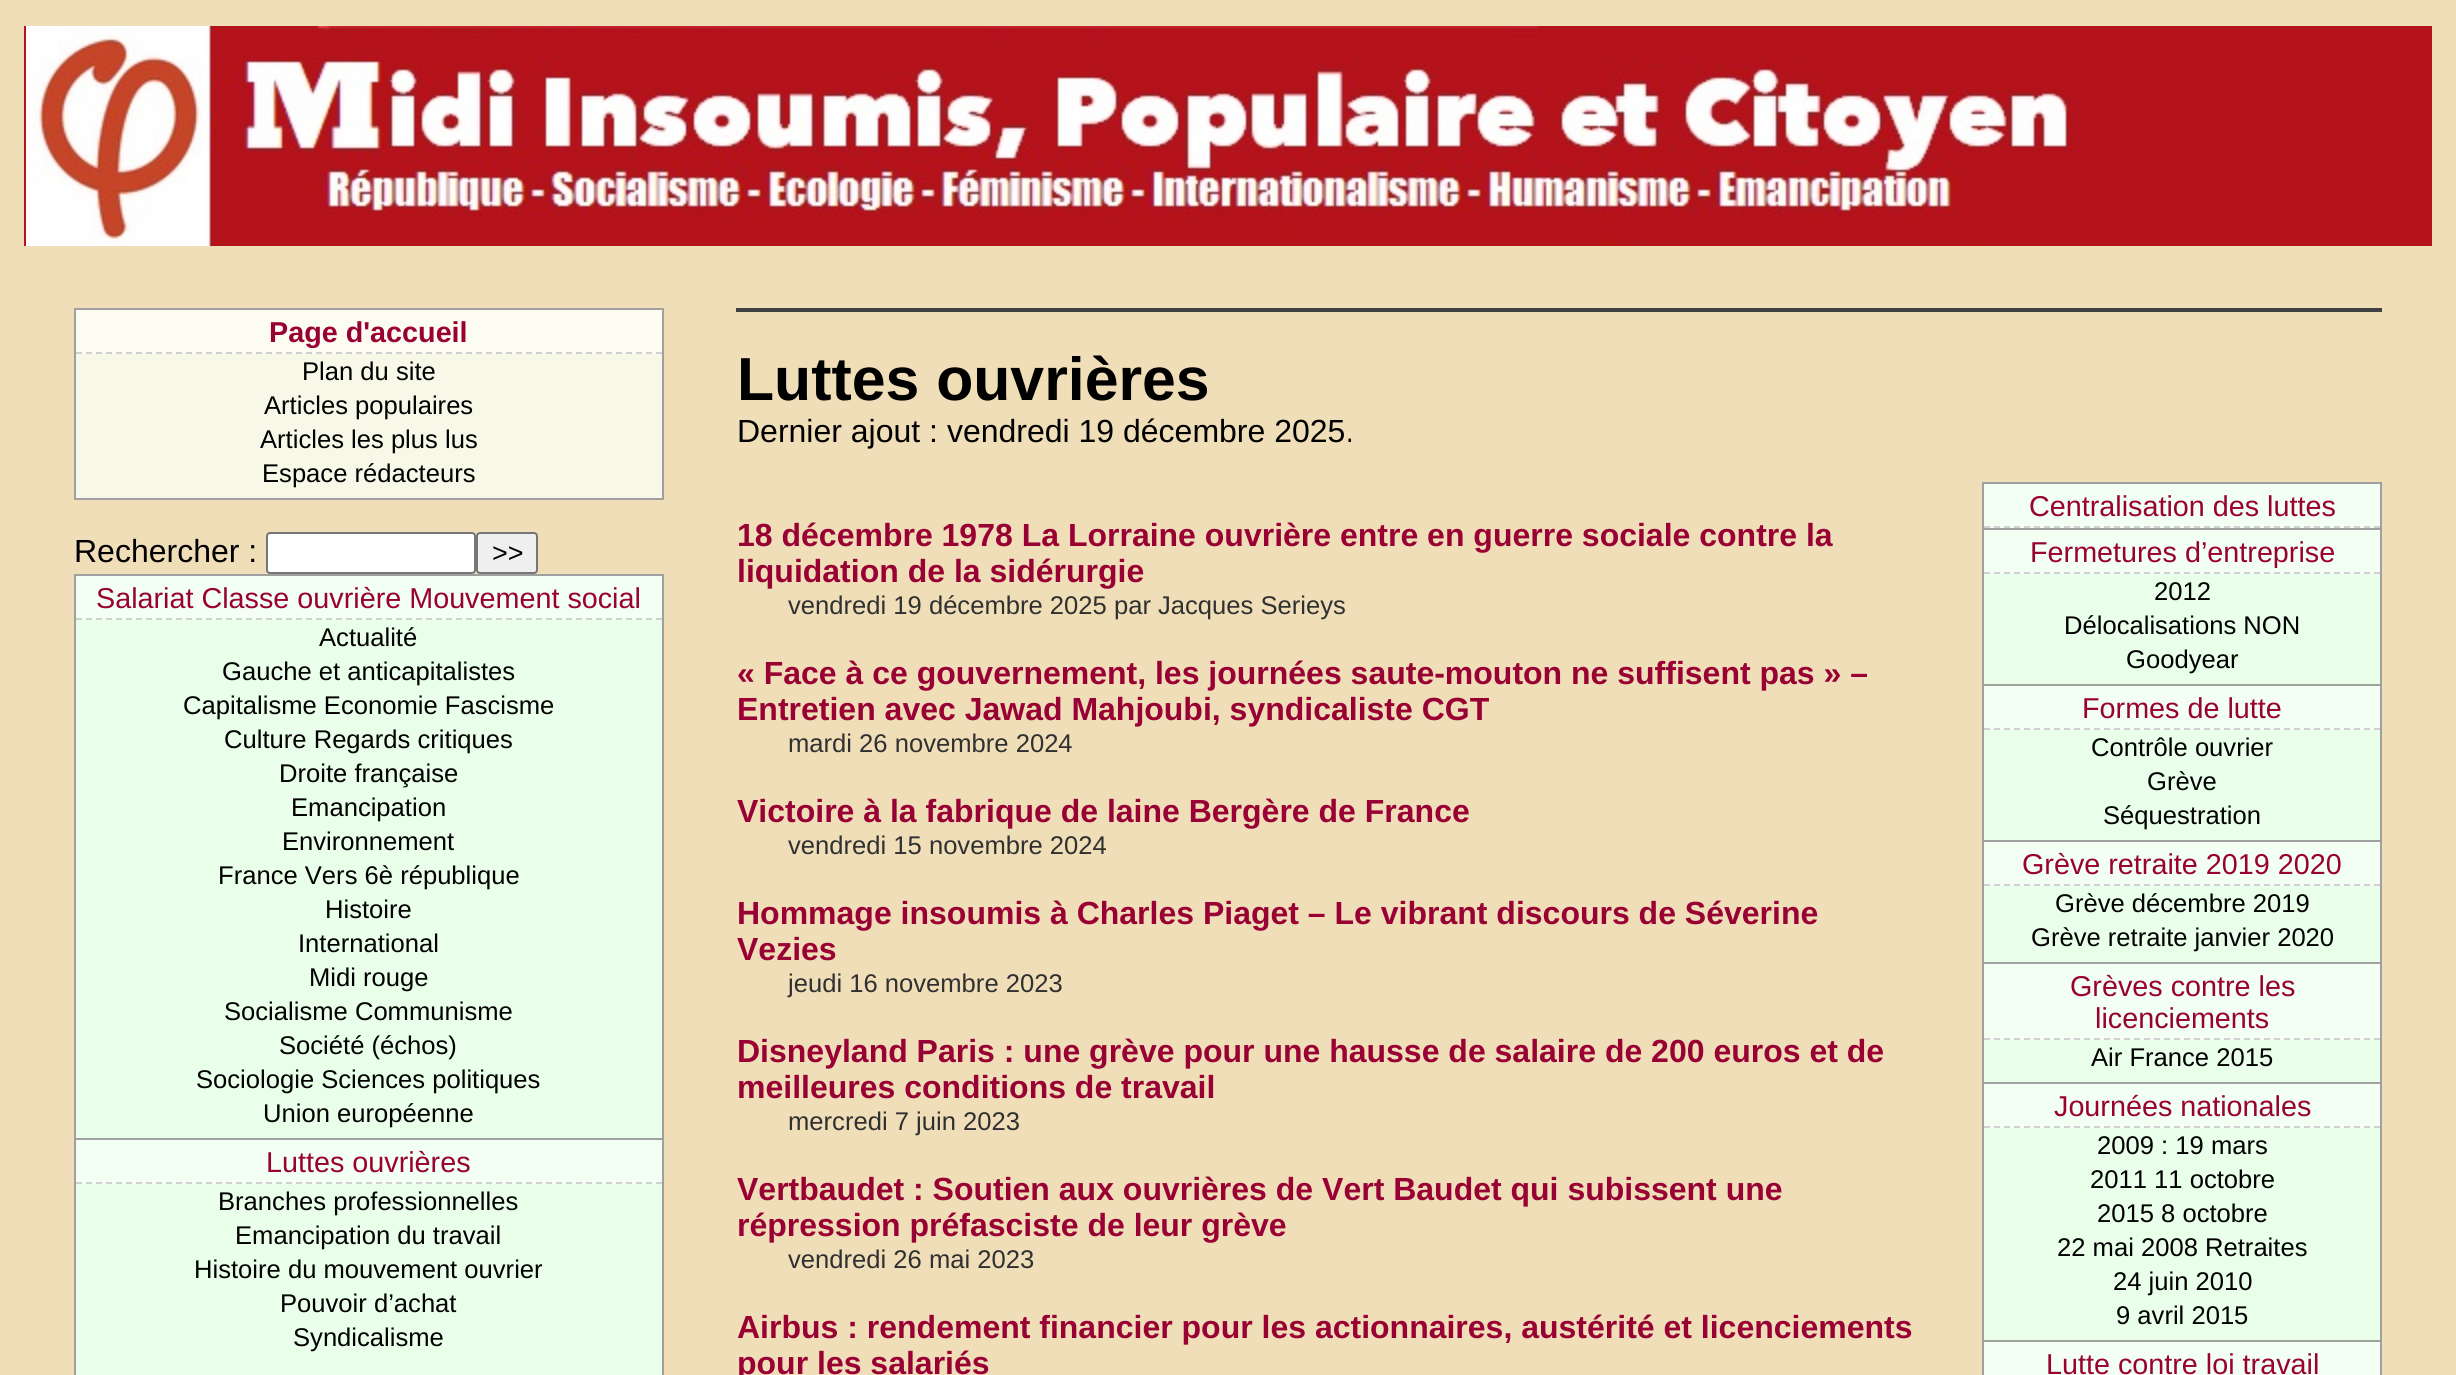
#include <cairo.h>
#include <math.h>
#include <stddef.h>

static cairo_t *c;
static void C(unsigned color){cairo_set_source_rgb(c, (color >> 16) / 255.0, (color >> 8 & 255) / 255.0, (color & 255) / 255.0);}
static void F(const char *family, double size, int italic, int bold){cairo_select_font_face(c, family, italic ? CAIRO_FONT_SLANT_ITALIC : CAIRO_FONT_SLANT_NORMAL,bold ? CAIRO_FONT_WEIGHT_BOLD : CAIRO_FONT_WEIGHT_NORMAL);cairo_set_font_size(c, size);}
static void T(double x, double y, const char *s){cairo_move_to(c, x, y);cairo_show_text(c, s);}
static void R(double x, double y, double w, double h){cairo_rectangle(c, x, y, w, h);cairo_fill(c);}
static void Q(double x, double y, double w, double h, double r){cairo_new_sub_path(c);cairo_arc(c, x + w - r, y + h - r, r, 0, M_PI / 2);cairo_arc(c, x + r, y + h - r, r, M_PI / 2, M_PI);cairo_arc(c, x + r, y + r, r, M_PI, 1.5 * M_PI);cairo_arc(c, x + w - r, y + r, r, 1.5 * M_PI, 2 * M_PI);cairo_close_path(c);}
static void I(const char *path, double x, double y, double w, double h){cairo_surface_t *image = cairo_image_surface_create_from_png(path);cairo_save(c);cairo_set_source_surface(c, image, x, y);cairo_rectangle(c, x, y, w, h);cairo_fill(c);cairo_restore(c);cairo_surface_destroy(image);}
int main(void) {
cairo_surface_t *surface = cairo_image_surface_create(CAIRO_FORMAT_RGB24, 2456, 1375);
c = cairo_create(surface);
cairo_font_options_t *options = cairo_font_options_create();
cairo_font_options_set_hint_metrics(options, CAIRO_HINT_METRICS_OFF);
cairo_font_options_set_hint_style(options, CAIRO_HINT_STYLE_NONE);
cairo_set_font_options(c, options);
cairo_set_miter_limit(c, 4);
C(0xf0deb8);
cairo_paint(c);
C(0xb4121d);
R(24,26,2408,220);
I("1.png",26,26,2049,220);
C(0xa0a0a0);
R(662,308,2,192);
R(74,498,590,2);
R(74,308,2,192);
C(0xf8f8e8);
R(76,354,586,144);
C(0xfcfcf0);
R(76,310,586,44);
C(0xa0a0a0);
R(76,308,586,2);
cairo_new_path(c);
cairo_move_to(c,76,353);
cairo_line_to(c,662,353);
C(0xd0d0d0);
cairo_set_dash(c,(double[]){6,4},2,0);
cairo_stroke(c);
F("Liberation Sans",28.75,0,1);
C(0x990134);
T(269,342,"Page d'accueil");
F("Liberation Sans",25.6,0,0);
C(0x000000);
T(302,380,"Plan du site");
T(264,414,"Articles populaires");
T(260,448,"Articles les plus lus");
T(262,482,"Espace rédacteurs");
F("Liberation Sans",32,0,0);
T(74,562,"Rechercher :");
C(0xffffff);
Q(267,533,208,40,3);
cairo_fill_preserve(c);
C(0x767676);
cairo_set_dash(c,NULL,0,0);
cairo_stroke(c);
C(0xefefef);
Q(477,533,60,40,3);
cairo_fill_preserve(c);
C(0x767676);
cairo_stroke(c);
F("Liberation Sans",27,0,0);
C(0x000000);
T(492,562,">>");
C(0xa0a0a0);
R(662,574,2,801);
R(74,574,2,801);
C(0xeaffea);
R(76,620,586,755);
C(0xf2fff2);
R(76,576,586,44);
C(0xa0a0a0);
R(76,574,586,2);
cairo_new_path(c);
cairo_move_to(c,76,619);
cairo_line_to(c,662,619);
C(0xd0d0d0);
cairo_set_dash(c,(double[]){6,4},2,0);
cairo_stroke(c);
F("Liberation Sans",28.75,0,0);
C(0x990134);
T(96,608,"Salariat Classe ouvrière Mouvement social");
F("Liberation Sans",25.6,0,0);
C(0x000000);
T(319,646,"Actualité");
T(222,680,"Gauche et anticapitalistes");
T(183,714,"Capitalisme Economie Fascisme");
T(224,748,"Culture Regards critiques");
T(279,782,"Droite française");
T(291,816,"Emancipation");
T(282,850,"Environnement");
T(218,884,"France Vers 6è république");
T(325,918,"Histoire");
T(298,952,"International");
T(309,986,"Midi rouge");
T(224,1020,"Socialisme Communisme");
T(279,1054,"Société (échos)");
T(196,1088,"Sociologie Sciences politiques");
T(263,1122,"Union européenne");
C(0xf2fff2);
R(76,1140,586,44);
C(0xa0a0a0);
R(76,1138,586,2);
cairo_new_path(c);
cairo_move_to(c,76,1183);
cairo_line_to(c,662,1183);
C(0xd0d0d0);
cairo_stroke(c);
F("Liberation Sans",28.75,0,0);
C(0x990134);
T(266,1172,"Luttes ouvrières");
F("Liberation Sans",25.6,0,0);
C(0x000000);
T(218,1210,"Branches professionnelles");
T(235,1244,"Emancipation du travail");
T(194,1278,"Histoire du mouvement ouvrier");
T(280,1312,"Pouvoir d’achat");
T(293,1346,"Syndicalisme");
C(0x404040);
R(736,308,1646,4);
F("Liberation Sans",60.75,0,1);
C(0x000000);
T(737,400,"Luttes ouvrières");
F("Liberation Sans",32,0,0);
T(737,442,"Dernier ajout : vendredi 19 décembre 2025.");
F("Liberation Sans",32,0,1);
C(0x990134);
T(737,546,"18 décembre 1978 La Lorraine ouvrière entre en guerre sociale contre la");
T(737,582,"liquidation de la sidérurgie");
F("Liberation Sans",25.6,0,0);
C(0x303030);
T(788,614,"vendredi 19 décembre 2025 par Jacques Serieys");
F("Liberation Sans",32,0,1);
C(0x990134);
T(737,684,"« Face à ce gouvernement, les journées saute-mouton ne suffisent pas » –");
T(737,720,"Entretien avec Jawad Mahjoubi, syndicaliste CGT");
F("Liberation Sans",25.6,0,0);
C(0x303030);
T(788,752,"mardi 26 novembre 2024");
F("Liberation Sans",32,0,1);
C(0x990134);
T(737,822,"Victoire à la fabrique de laine Bergère de France");
F("Liberation Sans",25.6,0,0);
C(0x303030);
T(788,854,"vendredi 15 novembre 2024");
F("Liberation Sans",32,0,1);
C(0x990134);
T(737,924,"Hommage insoumis à Charles Piaget – Le vibrant discours de Séverine");
T(737,960,"Vezies");
F("Liberation Sans",25.6,0,0);
C(0x303030);
T(788,992,"jeudi 16 novembre 2023");
F("Liberation Sans",32,0,1);
C(0x990134);
T(737,1062,"Disneyland Paris : une grève pour une hausse de salaire de 200 euros et de");
T(737,1098,"meilleures conditions de travail");
F("Liberation Sans",25.6,0,0);
C(0x303030);
T(788,1130,"mercredi 7 juin 2023");
F("Liberation Sans",32,0,1);
C(0x990134);
T(737,1200,"Vertbaudet : Soutien aux ouvrières de Vert Baudet qui subissent une");
T(737,1236,"répression préfasciste de leur grève");
F("Liberation Sans",25.6,0,0);
C(0x303030);
T(788,1268,"vendredi 26 mai 2023");
F("Liberation Sans",32,0,1);
C(0x990134);
T(737,1338,"Airbus : rendement financier pour les actionnaires, austérité et licenciements");
T(737,1374,"pour les salariés");
C(0xa0a0a0);
R(2380,482,2,893);
R(1982,482,2,893);
C(0xeaffea);
R(1984,574,396,766);
C(0xf2fff2);
R(1984,484,396,44);
C(0xa0a0a0);
R(1984,482,396,2);
cairo_new_path(c);
cairo_move_to(c,1984,527);
cairo_line_to(c,2380,527);
C(0xd0d0d0);
cairo_stroke(c);
F("Liberation Sans",28.75,0,0);
C(0x990134);
T(2029,516,"Centralisation des luttes");
C(0xf2fff2);
R(1984,530,396,44);
C(0xa0a0a0);
R(1984,528,396,2);
cairo_new_path(c);
cairo_move_to(c,1984,573);
cairo_line_to(c,2380,573);
C(0xd0d0d0);
cairo_stroke(c);
C(0x990134);
T(2030,562,"Fermetures d’entreprise");
F("Liberation Sans",25.6,0,0);
C(0x000000);
T(2154,600,"2012");
T(2064,634,"Délocalisations NON");
T(2126,668,"Goodyear");
C(0xf2fff2);
R(1984,686,396,44);
C(0xa0a0a0);
R(1984,684,396,2);
cairo_new_path(c);
cairo_move_to(c,1984,729);
cairo_line_to(c,2380,729);
C(0xd0d0d0);
cairo_stroke(c);
F("Liberation Sans",28.75,0,0);
C(0x990134);
T(2082,718,"Formes de lutte");
F("Liberation Sans",25.6,0,0);
C(0x000000);
T(2091,756,"Contrôle ouvrier");
T(2147,790,"Grève");
T(2103,824,"Séquestration");
C(0xf2fff2);
R(1984,842,396,44);
C(0xa0a0a0);
R(1984,840,396,2);
cairo_new_path(c);
cairo_move_to(c,1984,885);
cairo_line_to(c,2380,885);
C(0xd0d0d0);
cairo_stroke(c);
F("Liberation Sans",28.75,0,0);
C(0x990134);
T(2022,874,"Grève retraite 2019 2020");
F("Liberation Sans",25.6,0,0);
C(0x000000);
T(2055,912,"Grève décembre 2019");
T(2031,946,"Grève retraite janvier 2020");
C(0xf2fff2);
R(1984,964,396,76);
C(0xa0a0a0);
R(1984,962,396,2);
cairo_new_path(c);
cairo_move_to(c,1984,1039);
cairo_line_to(c,2380,1039);
C(0xd0d0d0);
cairo_stroke(c);
F("Liberation Sans",28.75,0,0);
C(0x990134);
T(2070,996,"Grèves contre les");
T(2095,1028,"licenciements");
F("Liberation Sans",25.6,0,0);
C(0x000000);
T(2091,1066,"Air France 2015");
C(0xf2fff2);
R(1984,1084,396,44);
C(0xa0a0a0);
R(1984,1082,396,2);
cairo_new_path(c);
cairo_move_to(c,1984,1127);
cairo_line_to(c,2380,1127);
C(0xd0d0d0);
cairo_stroke(c);
F("Liberation Sans",28.75,0,0);
C(0x990134);
T(2054,1116,"Journées nationales");
F("Liberation Sans",25.6,0,0);
C(0x000000);
T(2097,1154,"2009 : 19 mars");
T(2090,1188,"2011 11 octobre");
T(2097,1222,"2015 8 octobre");
T(2057,1256,"22 mai 2008 Retraites");
T(2113,1290,"24 juin 2010");
T(2116,1324,"9 avril 2015");
C(0xf2fff2);
R(1984,1342,396,33);
C(0xa0a0a0);
R(1984,1340,396,2);
F("Liberation Sans",28.75,0,0);
C(0x990134);
T(2046,1374,"Lutte contre loi travail");
cairo_surface_write_to_png(surface, "o.png");
cairo_font_options_destroy(options);
cairo_destroy(c);
cairo_surface_destroy(surface);
return 0;
}
